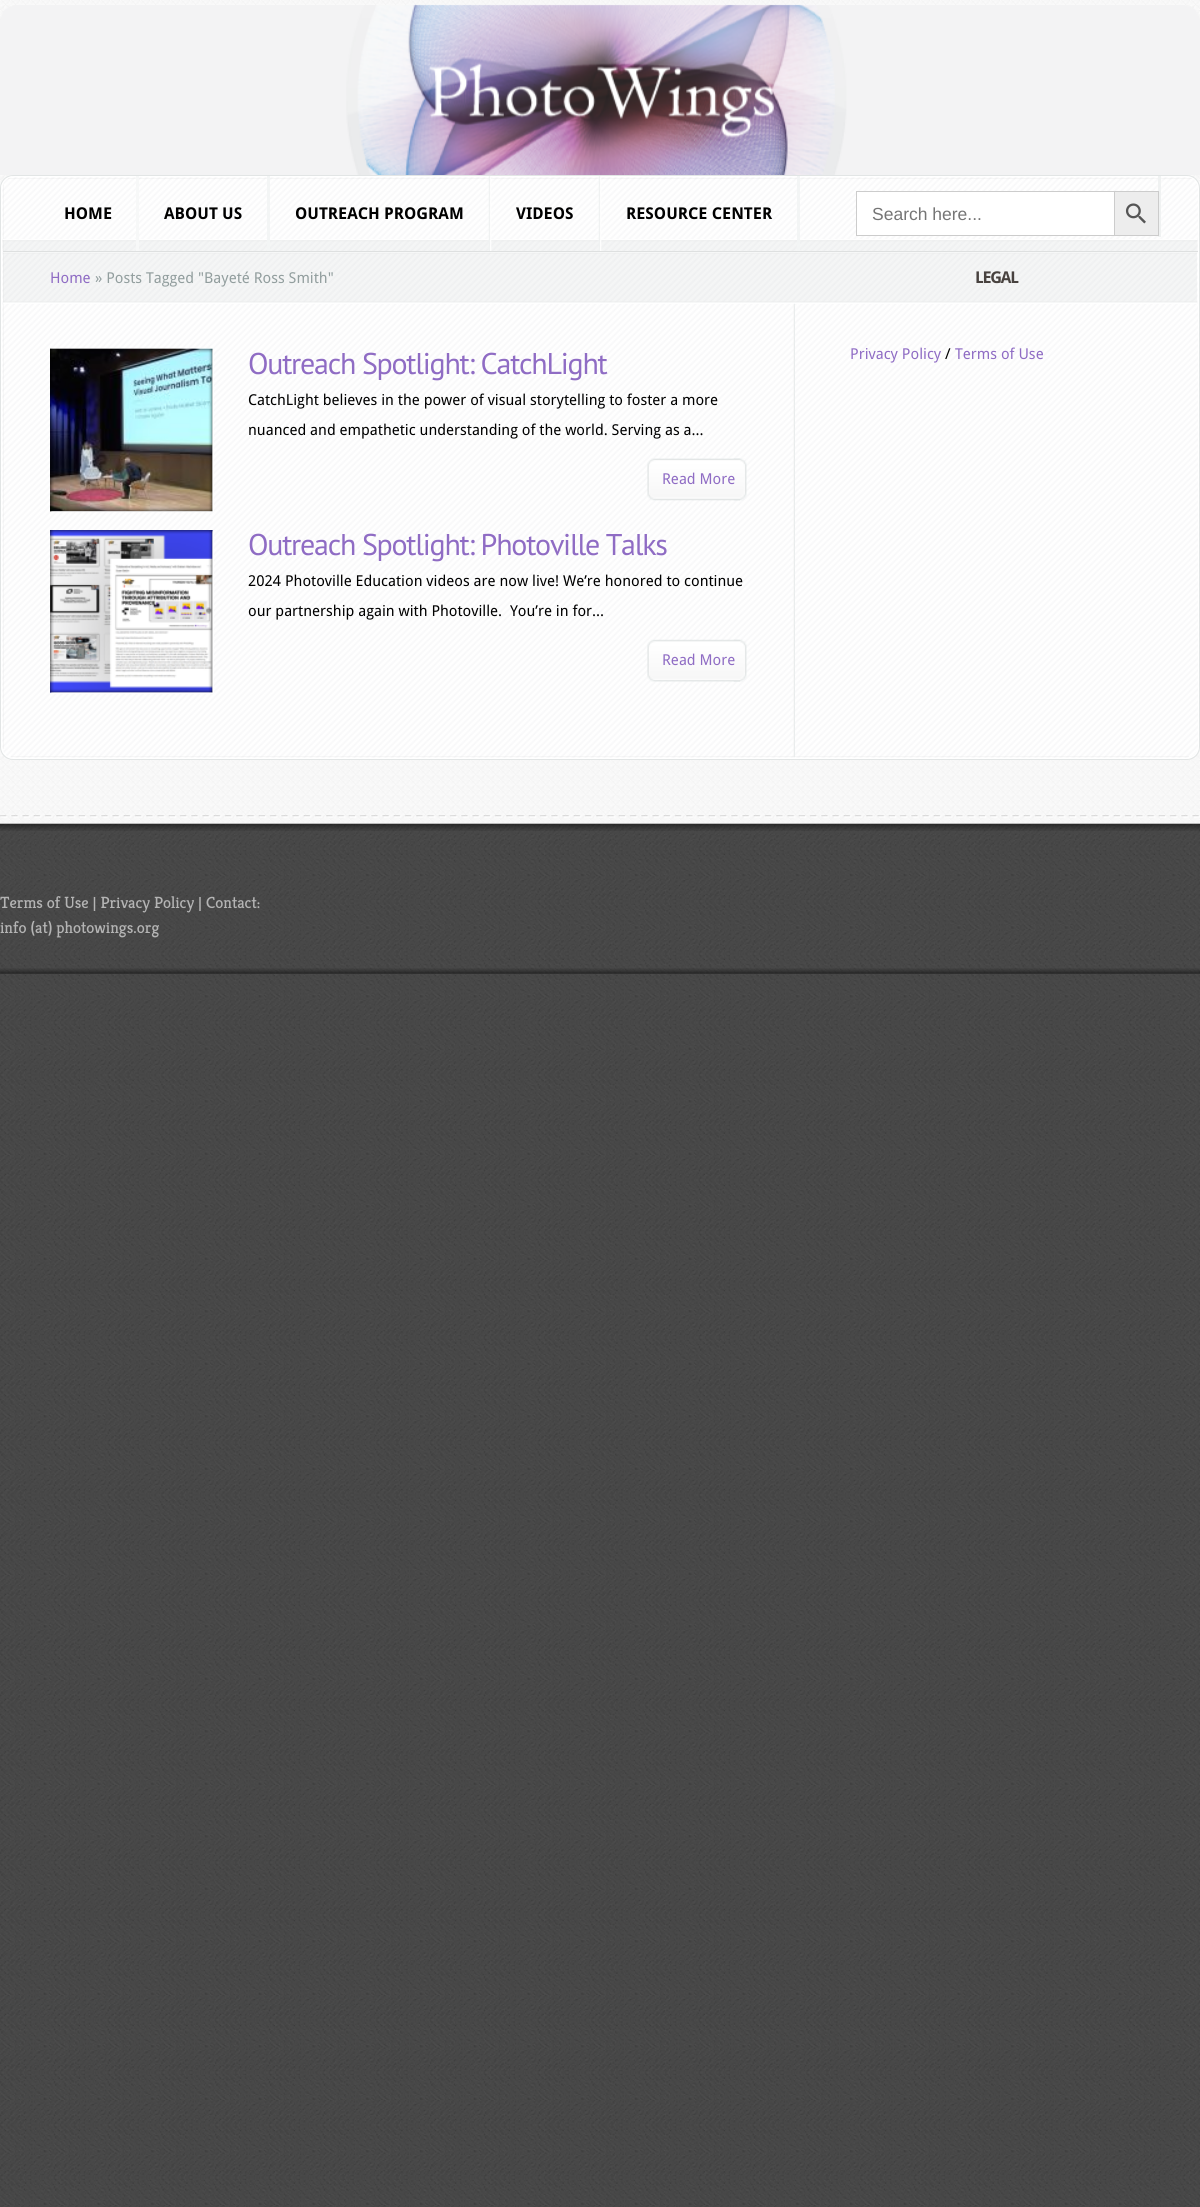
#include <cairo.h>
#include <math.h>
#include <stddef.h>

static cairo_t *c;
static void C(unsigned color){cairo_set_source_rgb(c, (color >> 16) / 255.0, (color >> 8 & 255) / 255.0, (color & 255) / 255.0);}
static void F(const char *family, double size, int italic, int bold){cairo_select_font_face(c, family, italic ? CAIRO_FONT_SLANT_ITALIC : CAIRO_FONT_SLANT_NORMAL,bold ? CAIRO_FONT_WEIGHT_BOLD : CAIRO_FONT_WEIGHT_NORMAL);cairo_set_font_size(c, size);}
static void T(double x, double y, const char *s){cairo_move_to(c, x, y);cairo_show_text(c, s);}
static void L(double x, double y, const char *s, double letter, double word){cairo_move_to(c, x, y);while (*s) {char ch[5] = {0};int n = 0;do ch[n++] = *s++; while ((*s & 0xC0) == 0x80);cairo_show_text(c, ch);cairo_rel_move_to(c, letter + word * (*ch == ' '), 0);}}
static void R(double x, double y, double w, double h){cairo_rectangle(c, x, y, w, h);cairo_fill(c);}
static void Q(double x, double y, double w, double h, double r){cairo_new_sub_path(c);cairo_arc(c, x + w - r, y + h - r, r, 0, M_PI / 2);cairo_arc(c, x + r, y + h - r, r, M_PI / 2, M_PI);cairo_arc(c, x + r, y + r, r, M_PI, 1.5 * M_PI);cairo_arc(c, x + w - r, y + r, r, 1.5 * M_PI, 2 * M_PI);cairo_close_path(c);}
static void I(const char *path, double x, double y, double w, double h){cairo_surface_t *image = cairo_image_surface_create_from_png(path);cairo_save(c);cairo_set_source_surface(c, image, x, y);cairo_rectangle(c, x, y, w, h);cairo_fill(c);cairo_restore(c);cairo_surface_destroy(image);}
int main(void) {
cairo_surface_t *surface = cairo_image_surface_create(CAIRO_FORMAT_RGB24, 1200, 2207);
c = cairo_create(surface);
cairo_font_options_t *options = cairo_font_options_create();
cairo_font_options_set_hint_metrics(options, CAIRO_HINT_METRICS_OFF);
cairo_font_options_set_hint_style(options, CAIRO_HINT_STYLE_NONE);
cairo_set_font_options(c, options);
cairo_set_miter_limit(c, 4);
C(0xffffff);
cairo_paint(c);
I("1.png",0,973,1200,1234);
I("2.png",0,0,1200,823);
I("3.png",0,4,1200,171);
Q(.5,175.5,1199,584,12.5);
C(0xe2e5e5);
cairo_set_line_width(c,1);
cairo_stroke(c);
I("4.png",2,177,1196,581);
Q(1.5,176.5,1197,582,12.5);
C(0xffffff);
cairo_stroke(c);
I("5.png",3,185,1,564);
cairo_set_source_rgba(c,0,0,0,0.03);
R(8,178,1184,1);
R(11,756,1178,1);
I("6.png",2,239,1196,12);
C(0xf7f8f8);
R(136,176,3,75);
F("Droid Sans",16.25,0,1);
C(0x000000);
T(64,219,"HOME");
C(0xf3f5f5);
R(267,176,3,75);
C(0x000000);
T(164,219,"ABOUT US");
I("7.png",488,176,4,75);
T(295,219,"OUTREACH PROGRAM");
I("8.png",598,176,4,75);
T(516,219,"VIDEOS");
C(0xf3f5f5);
R(797,176,3,75);
C(0x000000);
T(626,219,"RESOURCE CENTER");
C(0xf0f2f2);
R(1158,176,3,61);
C(0xffffff);
R(857,192,257,43);
C(0xcccccc);
R(856,191,258,1);
R(856,235,258,1);
R(856,191,1,45);
F("Liberation Sans",17.5,0,0);
C(0x757575);
T(872,220,"Search here...");
C(0xededed);
cairo_rectangle(c,1114.5,191.5,44,44);
cairo_fill_preserve(c);
C(0xcccccc);
cairo_stroke(c);
I("9.png",1125,203,21,21);
C(0xdee0e0);
R(3,251,1195,1);
I("10.png",3,252,792,52);
F("Droid Sans",15,0,0);
C(0x8f6cc4);
T(50,283,"Home");
C(0x929e9e);
T(95,283,"» Posts Tagged \"Bayeté Ross Smith\"");
I("11.png",793,303,2,455);
I("12.png",50,348,163,164);
I("13.png",50,348,164,164);
F("PT Sans",30,0,0);
C(0x8f6cc4);
L(248,374,"Outreach Spotlight: CatchLight",-1.25,0);
F("Droid Sans",15,0,0);
C(0x000000);
T(248,405,"CatchLight believes in the power of visual storytelling to foster a more");
T(248,435,"nuanced and empathetic understanding of the world. Serving as a...");
I("14.png",733,458,14,43);
I("15.png",647,458,93,43);
C(0x8f6cc4);
T(662,484,"Read More");
I("16.png",50,530,163,163);
I("17.png",50,530,164,164);
F("PT Sans",30,0,0);
L(248,555,"Outreach Spotlight: Photoville Talks",-1.25,0);
F("Droid Sans",15,0,0);
C(0x000000);
T(248,586,"2024 Photoville Education videos are now live! We’re honored to continue");
T(248,616,"our partnership again with Photoville.  You’re in for...");
I("18.png",733,639,14,43);
I("19.png",647,639,93,43);
C(0x8f6cc4);
T(662,665,"Read More");
I("20.png",795,252,402,52);
F("Droid Sans",16.25,0,1);
C(0x48423f);
L(975,283,"LEGAL",-1.25,0);
F("Droid Sans",15,0,0);
C(0x8f6cc4);
T(850,359,"Privacy Policy");
C(0x000000);
T(945,359,"/");
C(0x8f6cc4);
T(955,359,"Terms of Use");
I("21.png",0,815,1200,3);
I("22.png",0,823,1200,151);
I("23.png",0,823,1200,8);
F("Kreon",16.25,0,0);
C(0xb4b4b4);
T(0,908,"Terms of Use | Privacy Policy | Contact:");
T(0,933,"info (at) photowings.org");
I("24.png",0,968,1200,6);
cairo_surface_write_to_png(surface, "o.png");
cairo_font_options_destroy(options);
cairo_destroy(c);
cairo_surface_destroy(surface);
return 0;
}
